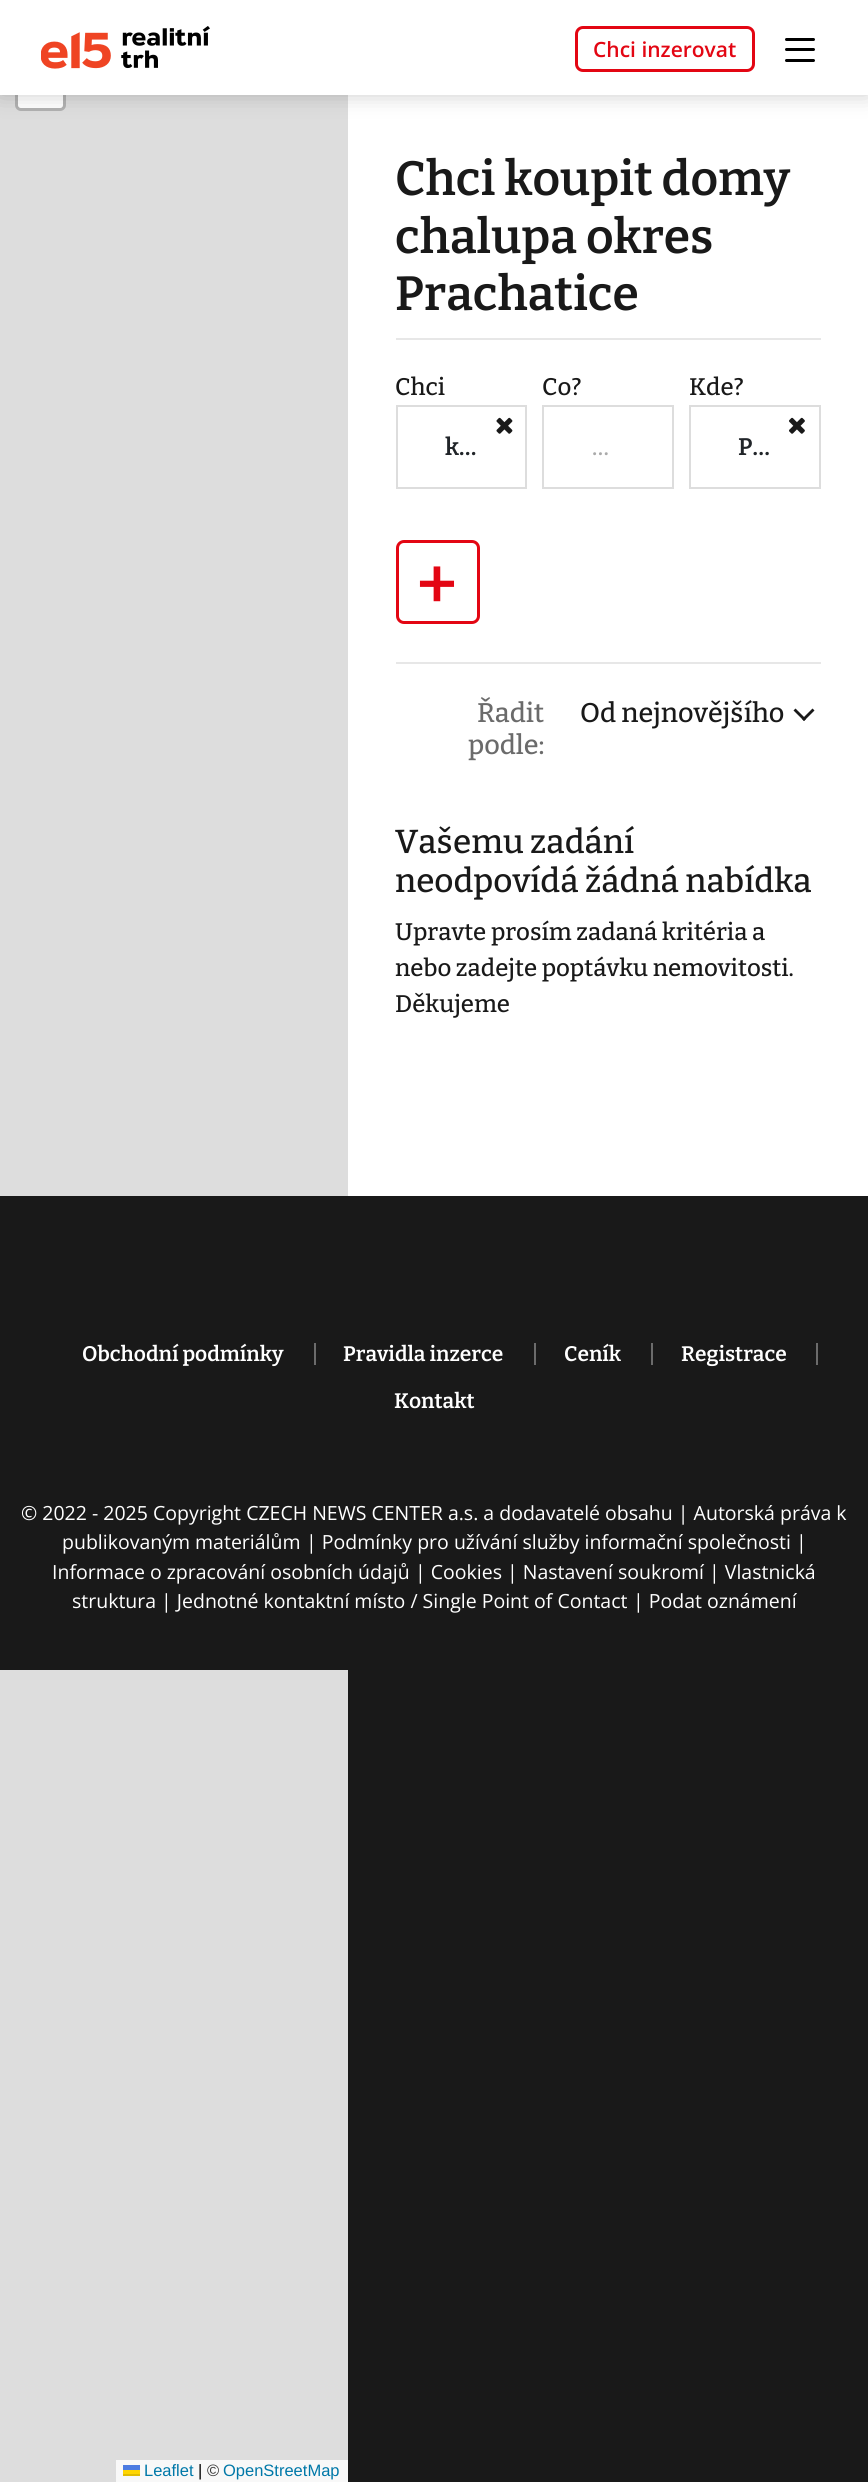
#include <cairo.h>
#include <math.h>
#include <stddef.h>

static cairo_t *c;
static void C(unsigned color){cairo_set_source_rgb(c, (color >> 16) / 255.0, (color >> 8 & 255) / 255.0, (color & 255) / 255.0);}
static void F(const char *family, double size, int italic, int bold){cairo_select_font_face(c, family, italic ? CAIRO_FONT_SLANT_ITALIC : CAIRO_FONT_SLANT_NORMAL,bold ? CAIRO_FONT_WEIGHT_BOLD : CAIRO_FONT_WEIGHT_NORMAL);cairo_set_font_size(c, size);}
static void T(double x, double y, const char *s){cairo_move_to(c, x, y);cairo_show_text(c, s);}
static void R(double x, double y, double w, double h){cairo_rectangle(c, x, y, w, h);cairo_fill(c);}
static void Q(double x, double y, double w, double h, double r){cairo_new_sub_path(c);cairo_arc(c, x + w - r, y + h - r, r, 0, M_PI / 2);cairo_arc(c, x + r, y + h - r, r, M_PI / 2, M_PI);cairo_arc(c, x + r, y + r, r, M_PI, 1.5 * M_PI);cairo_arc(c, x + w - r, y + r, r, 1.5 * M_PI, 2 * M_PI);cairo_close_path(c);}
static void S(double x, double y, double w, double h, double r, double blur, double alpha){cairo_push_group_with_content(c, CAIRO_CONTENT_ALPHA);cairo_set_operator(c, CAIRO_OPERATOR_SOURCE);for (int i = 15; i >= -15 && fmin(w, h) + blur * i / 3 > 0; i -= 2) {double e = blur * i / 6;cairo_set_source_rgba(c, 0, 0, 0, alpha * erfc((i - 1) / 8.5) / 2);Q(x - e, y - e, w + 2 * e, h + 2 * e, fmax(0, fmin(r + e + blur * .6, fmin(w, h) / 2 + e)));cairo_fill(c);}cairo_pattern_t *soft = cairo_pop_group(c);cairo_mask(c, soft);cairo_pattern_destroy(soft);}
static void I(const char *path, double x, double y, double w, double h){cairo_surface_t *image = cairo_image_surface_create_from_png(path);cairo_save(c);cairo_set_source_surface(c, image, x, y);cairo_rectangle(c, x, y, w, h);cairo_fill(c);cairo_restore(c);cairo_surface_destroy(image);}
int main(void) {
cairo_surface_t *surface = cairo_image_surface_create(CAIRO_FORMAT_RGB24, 868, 2482);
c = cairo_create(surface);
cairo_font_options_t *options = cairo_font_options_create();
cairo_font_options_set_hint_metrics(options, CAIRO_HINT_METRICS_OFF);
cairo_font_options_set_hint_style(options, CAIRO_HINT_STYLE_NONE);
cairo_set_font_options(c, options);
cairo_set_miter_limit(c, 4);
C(0x191919);
cairo_paint(c);
C(0xffffff);
R(348,95,520,1101);
C(0xdddddd);
R(0,95,348,2387);
Q(16.5,16.5,48,93,4.5);
C(0xb1b1b1);
cairo_set_line_width(c,3);
cairo_stroke(c);
C(0xffffff);
cairo_new_path(c);
cairo_move_to(c,18,63);
cairo_line_to(c,63,63);
cairo_line_to(c,63,105);
cairo_curve_to(c,63,106.5,61.5,108,60,108);
cairo_line_to(c,21,108);
cairo_curve_to(c,19.5,108,18,106.5,18,105);
cairo_close_path(c);
cairo_fill(c);
C(0x000000);
S(0,0,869,95,0,11,.2);
C(0xffffff);
R(0,0,868,95);
I("1.png",41,26,169,43);
Q(576.5,27.5,177,43,6.5);
C(0xe30613);
cairo_stroke(c);
F("Open Sans SemiBold",21,0,0);
T(593,57,"Chci inzerovat");
C(0x000000);
Q(785,38,30,3,1.5);
cairo_fill(c);
Q(785,48,30,3,1.5);
cairo_fill(c);
Q(785,59,30,3,1.5);
cairo_fill(c);
F("Bitter SemiBold",48,0,0);
C(0x191919);
T(395,195,"Chci koupit domy");
T(395,253,"chalupa okres");
T(395,310,"Prachatice");
C(0xe7e7e7);
R(396,338,425,2);
F("Bitter Medium",24,0,0);
C(0x191919);
T(395,395,"Chci");
cairo_rectangle(c,397,406,129,82);
C(0xdddddd);
cairo_set_line_width(c,2);
cairo_stroke(c);
I("2.png",496,417,17,17);
F("Bitter SemiBold",24,0,0);
C(0x212529);
T(445,455,"k…");
F("Bitter Medium",24,0,0);
C(0x191919);
T(542,395,"Co?");
cairo_rectangle(c,543,406,130,82);
C(0xdddddd);
cairo_stroke(c);
C(0xaaaaaa);
T(592,455,"…");
C(0x191919);
T(689,395,"Kde?");
cairo_rectangle(c,690,406,130,82);
C(0xdddddd);
cairo_stroke(c);
I("3.png",789,417,16,17);
F("Bitter SemiBold",24,0,0);
C(0x212529);
T(738,455,"P…");
Q(397.5,541.5,81,81,6.5);
C(0xe30613);
cairo_set_line_width(c,3);
cairo_stroke(c);
F("Bitter SemiBold",72,0,0);
T(417,609,"+");
C(0xe7e7e7);
R(396,662,425,2);
F("Bitter Medium",27,0,0);
C(0x6b6b6b);
T(477,722,"Řadit");
T(468,754,"podle:");
C(0x191919);
T(580,722,"Od nejnovějšího");
cairo_new_path(c);
cairo_move_to(c,812.5,708.5);
cairo_line_to(c,814.5,710.5);
cairo_line_to(c,804,721);
cairo_line_to(c,802,719);
cairo_close_path(c);
cairo_fill(c);
cairo_new_path(c);
cairo_move_to(c,795.5,708.5);
cairo_line_to(c,806,719);
cairo_line_to(c,804,721);
cairo_line_to(c,793.5,710.5);
cairo_close_path(c);
cairo_fill(c);
F("Bitter Medium",33.25,0,0);
T(395,853,"Vašemu zadání");
T(395,892,"neodpovídá žádná nabídka");
F("Bitter Medium",24,0,0);
T(395,940,"Upravte prosím zadaná kritéria a");
T(395,976,"nebo zadejte poptávku nemovitosti.");
T(395,1012,"Děkujeme");
C(0xf8f8f8);
R(116,2460,232,22);
F("Liberation Sans",16.5,0,0);
C(0x0078a8);
T(144,2476,"Leaflet");
C(0x4c7be1);
R(123,2465,17,5);
C(0xffd500);
R(123,2470,17,4);
C(0xe0bc00);
R(123,2474,17,2);
C(0x000000);
T(198,2476,"|");
C(0x333333);
T(207,2476,"©");
C(0x0078a8);
T(223,2476,"OpenStreetMap");
C(0x191919);
R(0,1196,348,474);
F("Bitter SemiBold",21,0,0);
C(0xffffff);
T(82,1361,"Obchodní podmínky");
C(0x6b6b6b);
R(314,1343,2,22);
C(0xffffff);
T(343,1361,"Pravidla inzerce");
C(0x6b6b6b);
R(534,1343,2,22);
C(0xffffff);
T(564,1361,"Ceník");
C(0x6b6b6b);
R(651,1343,2,22);
C(0xffffff);
T(681,1361,"Registrace");
C(0x6b6b6b);
R(816,1343,2,22);
C(0xffffff);
T(394,1408,"Kontakt");
F("Open Sans",19.5,0,0);
T(21,1520,"© 2022 - 2025 Copyright CZECH NEWS CENTER a.s. a dodavatelé obsahu | Autorská práva k");
T(62,1549,"publikovaným materiálům");
T(306,1549,"| Podmínky pro užívání služby informační společnosti");
T(796,1549,"|");
T(52,1579,"Informace o zpracování osobních údajů");
T(415,1579,"| Cookies");
T(507,1579,"| Nastavení soukromí");
T(709,1579,"| Vlastnická");
T(72,1608,"struktura");
T(161,1608,"| Jednotné kontaktní místo / Single Point of Contact");
T(633,1608,"| Podat oznámení");
cairo_surface_write_to_png(surface, "o.png");
cairo_font_options_destroy(options);
cairo_destroy(c);
cairo_surface_destroy(surface);
return 0;
}
